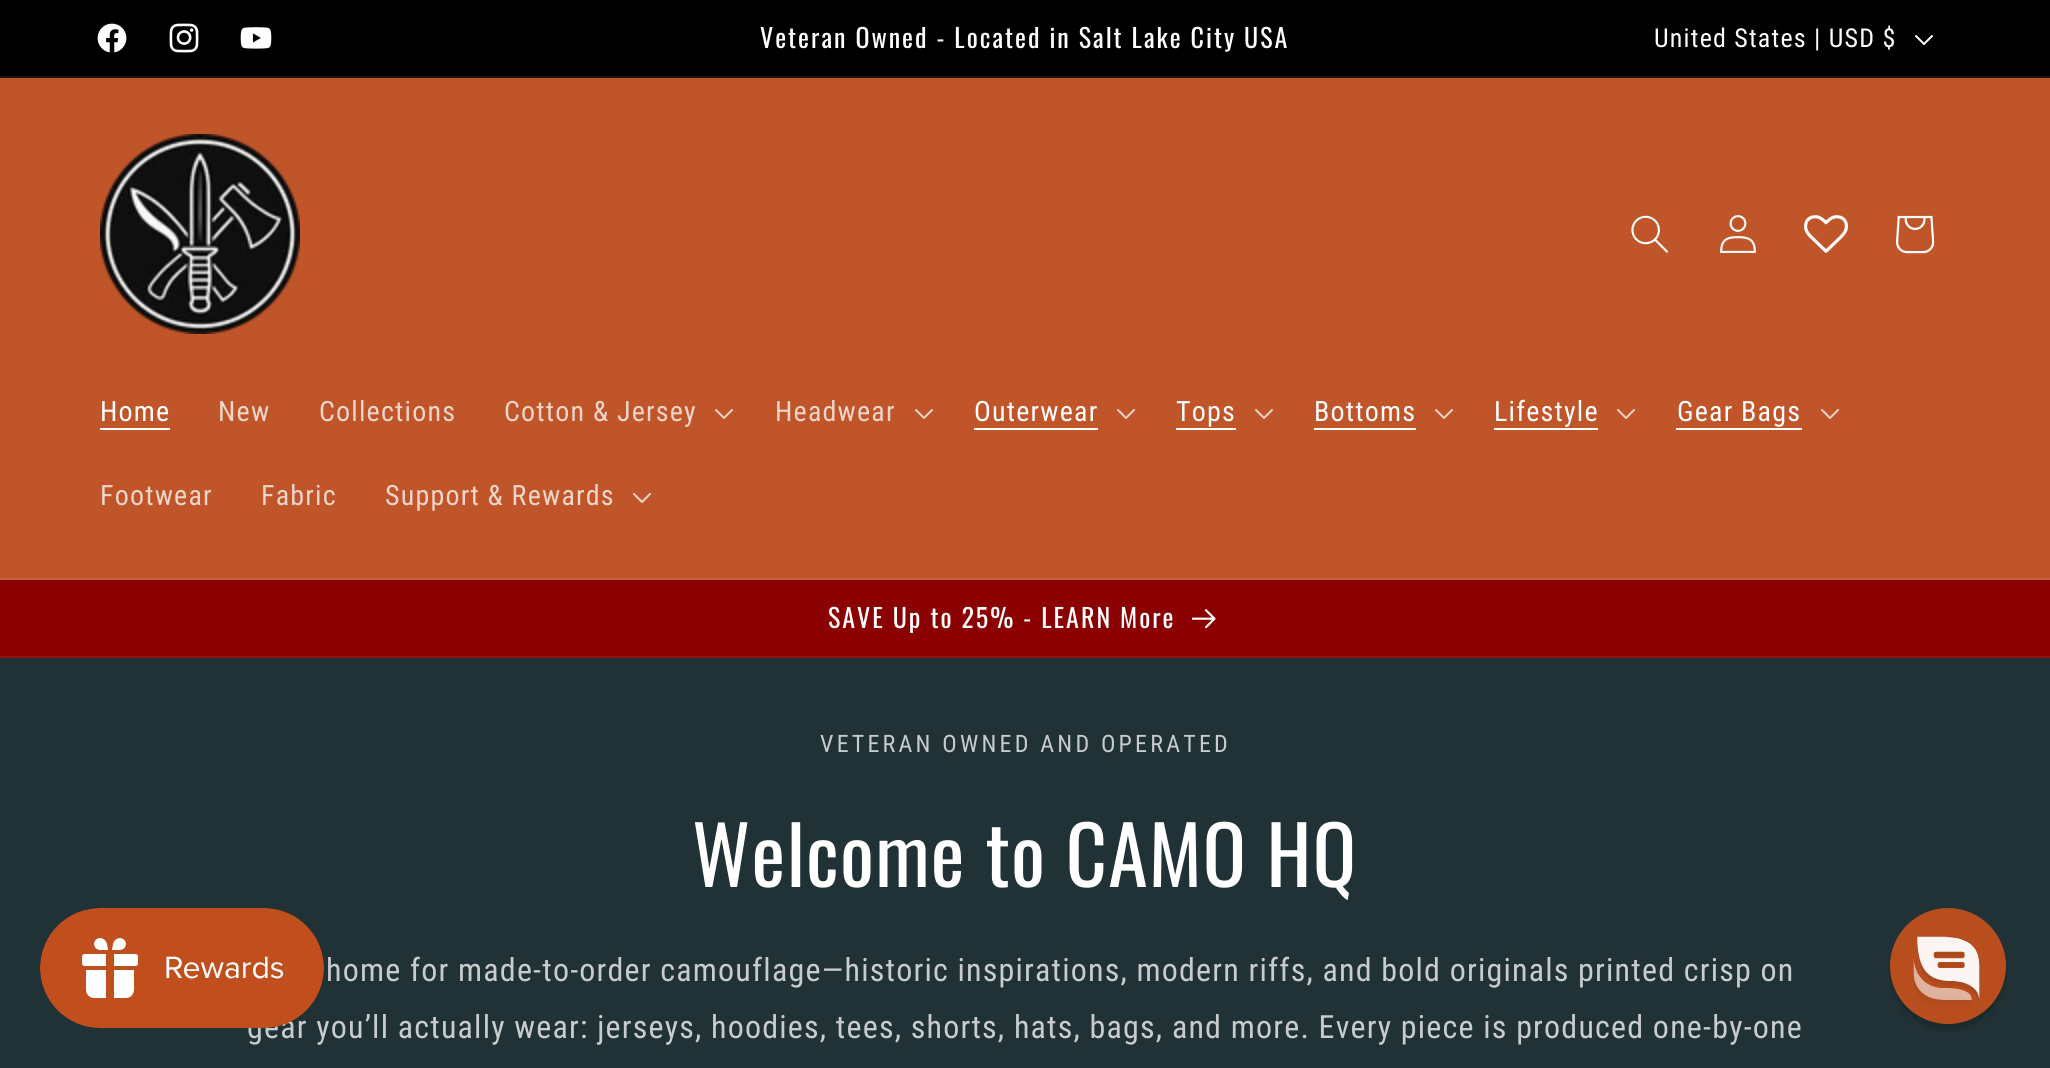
#include <cairo.h>
#include <math.h>
#include <stddef.h>

static cairo_t *c;
static void C(unsigned color){cairo_set_source_rgb(c, (color >> 16) / 255.0, (color >> 8 & 255) / 255.0, (color & 255) / 255.0);}
static void F(const char *family, double size, int italic, int bold){cairo_select_font_face(c, family, italic ? CAIRO_FONT_SLANT_ITALIC : CAIRO_FONT_SLANT_NORMAL,bold ? CAIRO_FONT_WEIGHT_BOLD : CAIRO_FONT_WEIGHT_NORMAL);cairo_set_font_size(c, size);}
static void L(double x, double y, const char *s, double letter, double word){cairo_move_to(c, x, y);while (*s) {char ch[5] = {0};int n = 0;do ch[n++] = *s++; while ((*s & 0xC0) == 0x80);cairo_show_text(c, ch);cairo_rel_move_to(c, letter + word * (*ch == ' '), 0);}}
static void R(double x, double y, double w, double h){cairo_rectangle(c, x, y, w, h);cairo_fill(c);}
static void Q(double x, double y, double w, double h, double r){cairo_new_sub_path(c);cairo_arc(c, x + w - r, y + h - r, r, 0, M_PI / 2);cairo_arc(c, x + r, y + h - r, r, M_PI / 2, M_PI);cairo_arc(c, x + r, y + r, r, M_PI, 1.5 * M_PI);cairo_arc(c, x + w - r, y + r, r, 1.5 * M_PI, 2 * M_PI);cairo_close_path(c);}
static void S(double x, double y, double w, double h, double r, double blur, double alpha){cairo_push_group_with_content(c, CAIRO_CONTENT_ALPHA);cairo_set_operator(c, CAIRO_OPERATOR_SOURCE);for (int i = 15; i >= -15 && fmin(w, h) + blur * i / 3 > 0; i -= 2) {double e = blur * i / 6;cairo_set_source_rgba(c, 0, 0, 0, alpha * erfc((i - 1) / 8.5) / 2);Q(x - e, y - e, w + 2 * e, h + 2 * e, fmax(0, fmin(r + e + blur * .6, fmin(w, h) / 2 + e)));cairo_fill(c);}cairo_pattern_t *soft = cairo_pop_group(c);cairo_mask(c, soft);cairo_pattern_destroy(soft);}
static void I(const char *path, double x, double y, double w, double h){cairo_surface_t *image = cairo_image_surface_create_from_png(path);cairo_save(c);cairo_set_source_surface(c, image, x, y);cairo_rectangle(c, x, y, w, h);cairo_fill(c);cairo_restore(c);cairo_surface_destroy(image);}
int main(void) {
cairo_surface_t *surface = cairo_image_surface_create(CAIRO_FORMAT_RGB24, 2050, 1068);
c = cairo_create(surface);
cairo_font_options_t *options = cairo_font_options_create();
cairo_font_options_set_hint_metrics(options, CAIRO_HINT_METRICS_OFF);
cairo_font_options_set_hint_style(options, CAIRO_HINT_STYLE_NONE);
cairo_set_font_options(c, options);
cairo_set_miter_limit(c, 4);
C(0x8b0000);
cairo_paint(c);
C(0x000000);
R(0,0,2050,76);
C(0x141414);
R(0,76,2050,2);
I("1.png",97,23,30,30);
I("2.png",169,23,30,30);
I("3.png",240,27,32,22);
F("Oswald",26,0,0);
C(0xffffff);
L(760,48,"Veteran Owned - Located in Salt Lake City USA",2,0);
F("Roboto Condensed",26,0,0);
L(1654,47,"United States | USD $",1.2,0);
I("4.png",1915,35,18,10);
C(0xc1552a);
R(0,78,2050,500);
C(0xc6633b);
R(0,578,2050,2);
I("5.png",100,134,200,200);
I("6.png",1631,215,37,38);
I("7.png",1720,215,36,38);
I("8.png",1804,215,44,38);
I("9.png",1896,215,39,39);
F("Roboto Condensed",28,0,0);
C(0xffffff);
L(100,421,"Home",1.2,0);
R(100,428,70,2);
C(0xf0d5ca);
L(218,421,"New",1.2,0);
L(319,421,"Collections",1.2,0);
L(504,421,"Cotton & Jersey",1.2,0);
I("10.png",715,409,18,10);
L(775,421,"Headwear",1.2,0);
I("10.png",915,409,18,10);
C(0xffffff);
L(974,421,"Outerwear",1.2,0);
R(974,428,124,2);
I("10.png",1117,409,18,10);
L(1176,421,"Tops",1.2,0);
R(1176,428,60,2);
I("10.png",1255,409,18,10);
L(1314,421,"Bottoms",1.2,0);
R(1314,428,102,2);
I("10.png",1435,409,18,10);
L(1494,421,"Lifestyle",1.2,0);
R(1494,428,104,2);
I("10.png",1617,409,18,10);
L(1677,421,"Gear Bags",1.2,0);
R(1676,428,126,2);
I("10.png",1821,409,18,10);
C(0xf0d5ca);
L(100,505,"Footwear",1.2,0);
L(261,505,"Fabric",1.2,0);
L(385,505,"Support & Rewards",1.2,0);
I("10.png",633,493,18,10);
C(0x941414);
R(0,656,2050,2);
F("Oswald",26,0,0);
C(0xffffff);
L(828,628,"SAVE Up to 25% - LEARN More",2,0);
I("11.png",1192,609,24,19);
C(0x213236);
R(0,658,2050,410);
F("Roboto Condensed",32,0,0);
C(0xc8cccd);
L(247,1038,"gear you’ll actually wear: jerseys, hoodies, tees, shorts, hats, bags, and more. Every piece is produced one-by-one",1.2,0);
I("12.png",40,908,284,120);
F("Roboto Condensed",24,0,0);
L(820,752,"VETERAN OWNED AND OPERATED",3.2,0);
F("Oswald",80,0,0);
C(0xffffff);
L(692,887,"Welcome to CAMO HQ",1.2,0);
F("Roboto Condensed",32,0,0);
C(0xc8cccd);
L(326,981,"home for made-to-order camouflage—historic inspirations, modern riffs, and bold originals printed crisp on",1.2,0);
C(0x020303);
S(1890,914,116,116,58,3,.2);
C(0xb84e1e);
cairo_arc(c,1948,966,58,0,2 * M_PI);
cairo_fill(c);
I("13.png",1913,936,67,69);
cairo_surface_write_to_png(surface, "o.png");
cairo_font_options_destroy(options);
cairo_destroy(c);
cairo_surface_destroy(surface);
return 0;
}
